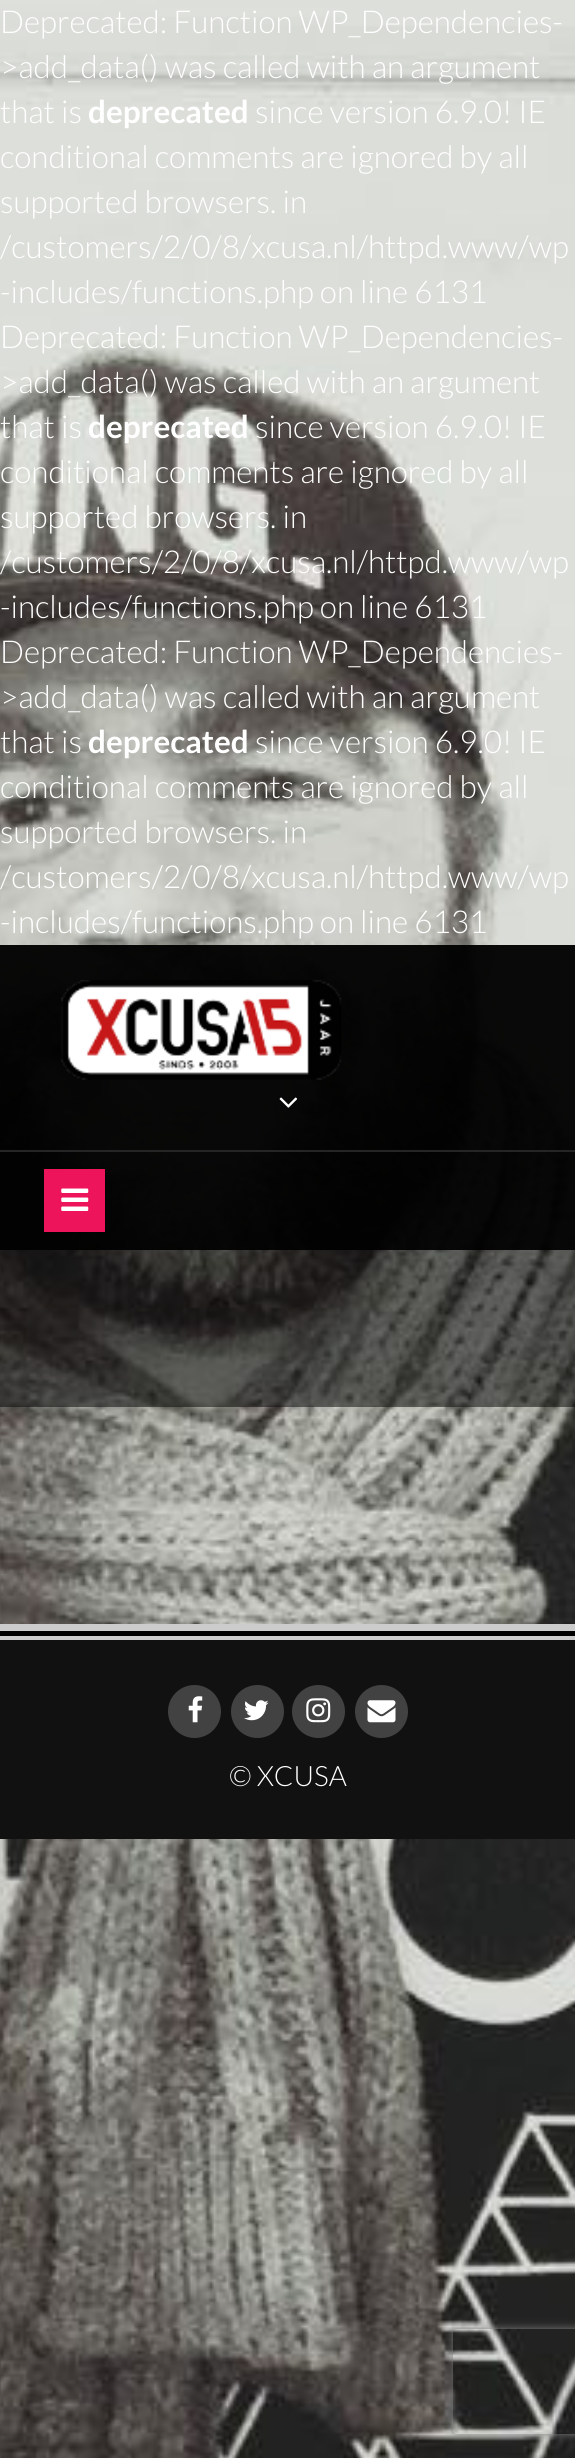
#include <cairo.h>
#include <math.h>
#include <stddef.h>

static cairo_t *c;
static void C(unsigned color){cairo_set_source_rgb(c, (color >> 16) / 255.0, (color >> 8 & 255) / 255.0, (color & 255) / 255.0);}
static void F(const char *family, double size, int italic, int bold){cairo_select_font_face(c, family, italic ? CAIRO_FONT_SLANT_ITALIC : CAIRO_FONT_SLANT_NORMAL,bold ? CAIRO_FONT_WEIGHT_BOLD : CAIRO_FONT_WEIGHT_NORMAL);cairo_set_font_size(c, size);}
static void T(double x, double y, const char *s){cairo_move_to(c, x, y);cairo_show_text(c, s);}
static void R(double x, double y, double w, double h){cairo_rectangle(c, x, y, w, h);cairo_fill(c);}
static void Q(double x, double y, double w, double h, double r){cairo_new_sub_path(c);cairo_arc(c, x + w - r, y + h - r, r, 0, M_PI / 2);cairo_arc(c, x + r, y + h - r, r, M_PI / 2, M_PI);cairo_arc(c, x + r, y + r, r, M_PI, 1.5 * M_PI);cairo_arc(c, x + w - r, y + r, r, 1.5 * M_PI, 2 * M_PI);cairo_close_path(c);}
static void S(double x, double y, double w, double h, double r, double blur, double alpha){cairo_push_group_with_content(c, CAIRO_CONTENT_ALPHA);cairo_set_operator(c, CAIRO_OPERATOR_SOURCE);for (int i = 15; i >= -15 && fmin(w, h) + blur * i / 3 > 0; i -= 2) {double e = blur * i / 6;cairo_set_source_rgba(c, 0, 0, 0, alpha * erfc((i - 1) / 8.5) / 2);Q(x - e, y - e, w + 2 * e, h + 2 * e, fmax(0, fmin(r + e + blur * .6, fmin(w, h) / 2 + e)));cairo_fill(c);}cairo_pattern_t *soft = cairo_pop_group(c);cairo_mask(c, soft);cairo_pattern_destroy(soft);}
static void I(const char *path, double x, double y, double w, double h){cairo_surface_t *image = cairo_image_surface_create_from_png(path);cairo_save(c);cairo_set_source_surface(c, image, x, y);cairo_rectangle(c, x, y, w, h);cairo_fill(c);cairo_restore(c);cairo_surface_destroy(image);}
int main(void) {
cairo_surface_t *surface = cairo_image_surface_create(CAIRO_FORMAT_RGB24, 575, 2458);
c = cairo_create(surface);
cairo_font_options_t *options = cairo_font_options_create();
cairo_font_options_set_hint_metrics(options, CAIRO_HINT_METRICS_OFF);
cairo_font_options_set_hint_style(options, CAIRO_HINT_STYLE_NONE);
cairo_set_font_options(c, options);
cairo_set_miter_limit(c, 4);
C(0xffffff);
cairo_paint(c);
I("1.png",0,0,575,2458);
F("Lato Light",31.5,0,0);
C(0xffffff);
T(0,33,"Deprecated: Function WP_Dependencies-");
T(0,78,">add_data() was called with an argument");
T(0,123,"that is");
F("Lato",31.5,0,1);
T(88,123,"deprecated");
F("Lato Light",31.5,0,0);
T(255,123,"since version 6.9.0! IE");
T(0,168,"conditional comments are ignored by all");
T(0,213,"supported browsers. in");
T(0,258,"/customers/2/0/8/xcusa.nl/httpd.www/wp");
T(0,303,"-includes/functions.php on line 6131");
T(0,348,"Deprecated: Function WP_Dependencies-");
T(0,393,">add_data() was called with an argument");
T(0,438,"that is");
F("Lato",31.5,0,1);
T(88,438,"deprecated");
F("Lato Light",31.5,0,0);
T(255,438,"since version 6.9.0! IE");
T(0,483,"conditional comments are ignored by all");
T(0,528,"supported browsers. in");
T(0,573,"/customers/2/0/8/xcusa.nl/httpd.www/wp");
T(0,618,"-includes/functions.php on line 6131");
T(0,663,"Deprecated: Function WP_Dependencies-");
T(0,708,">add_data() was called with an argument");
T(0,753,"that is");
F("Lato",31.5,0,1);
T(88,753,"deprecated");
F("Lato Light",31.5,0,0);
T(255,753,"since version 6.9.0! IE");
T(0,798,"conditional comments are ignored by all");
T(0,843,"supported browsers. in");
T(0,888,"/customers/2/0/8/xcusa.nl/httpd.www/wp");
T(0,933,"-includes/functions.php on line 6131");
cairo_set_source_rgba(c,0,0,0,0.8);
R(0,945,575,305);
R(0,945,575,305);
C(0x252525);
R(0,1150,575,2);
I("2.png",61,980,281,100);
I("3.png",279,1097,19,11);
C(0xed145b);
R(44,1169,61,63);
I("4.png",61,1188,28,23);
cairo_set_source_rgba(c,0,0,0,0.5);
R(0,1250,575,157);
C(0x000000);
R(0,1631,575,5);
C(0xcccccc);
R(0,1624,575,7);
R(0,1636,575,4);
C(0x111111);
R(0,1640,575,199);
C(0x424242);
cairo_arc(c,194.5,1711.5,26.5,0,2 * M_PI);
cairo_fill(c);
I("5.png",188,1696,15,27);
cairo_arc(c,257.5,1711.5,26.5,0,2 * M_PI);
cairo_fill(c);
I("6.png",244,1700,25,21);
cairo_arc(c,318.5,1711.5,26.5,0,2 * M_PI);
cairo_fill(c);
I("7.png",306,1698,25,25);
cairo_arc(c,381.5,1711.5,26.5,0,2 * M_PI);
cairo_fill(c);
I("8.png",367,1700,29,23);
F("Lato Light",28,0,0);
C(0xffffff);
T(229,1786,"© XCUSA");
cairo_save(c);
cairo_set_fill_rule(c,CAIRO_FILL_RULE_EVEN_ODD);
cairo_new_path(c);
cairo_move_to(c,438,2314);
cairo_line_to(c,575,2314);
cairo_line_to(c,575,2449);
cairo_line_to(c,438,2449);
cairo_close_path(c);
cairo_move_to(c,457,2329);
cairo_line_to(c,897,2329);
cairo_curve_to(c,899,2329,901,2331,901,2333);
cairo_line_to(c,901,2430);
cairo_curve_to(c,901,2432,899,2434,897,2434);
cairo_line_to(c,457,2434);
cairo_curve_to(c,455,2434,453,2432,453,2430);
cairo_line_to(c,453,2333);
cairo_curve_to(c,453,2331,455,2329,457,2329);
cairo_close_path(c);
cairo_clip(c);
C(0x808080);
S(453,2329,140,105,4,4.5,1);
cairo_restore(c);
cairo_surface_write_to_png(surface, "o.png");
cairo_font_options_destroy(options);
cairo_destroy(c);
cairo_surface_destroy(surface);
return 0;
}
